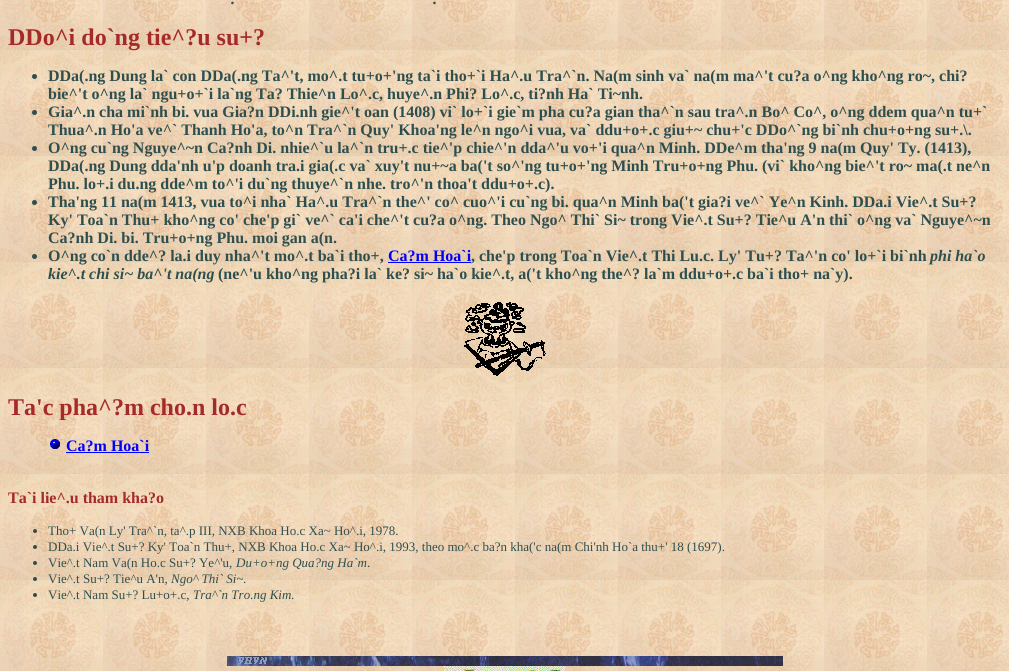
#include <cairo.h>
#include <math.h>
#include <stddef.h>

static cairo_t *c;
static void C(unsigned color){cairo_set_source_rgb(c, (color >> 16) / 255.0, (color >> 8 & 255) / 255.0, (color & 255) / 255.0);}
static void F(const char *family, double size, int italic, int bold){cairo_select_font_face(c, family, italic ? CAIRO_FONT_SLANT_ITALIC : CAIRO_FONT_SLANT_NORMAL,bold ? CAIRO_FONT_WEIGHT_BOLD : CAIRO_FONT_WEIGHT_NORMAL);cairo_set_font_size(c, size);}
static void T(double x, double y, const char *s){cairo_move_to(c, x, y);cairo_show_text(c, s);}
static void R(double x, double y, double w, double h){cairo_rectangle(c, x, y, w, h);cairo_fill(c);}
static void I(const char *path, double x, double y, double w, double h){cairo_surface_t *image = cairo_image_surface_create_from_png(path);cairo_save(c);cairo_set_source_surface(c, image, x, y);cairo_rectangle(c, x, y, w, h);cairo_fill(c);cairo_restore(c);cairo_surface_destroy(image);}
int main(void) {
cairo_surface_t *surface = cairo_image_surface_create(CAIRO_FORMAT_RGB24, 1009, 671);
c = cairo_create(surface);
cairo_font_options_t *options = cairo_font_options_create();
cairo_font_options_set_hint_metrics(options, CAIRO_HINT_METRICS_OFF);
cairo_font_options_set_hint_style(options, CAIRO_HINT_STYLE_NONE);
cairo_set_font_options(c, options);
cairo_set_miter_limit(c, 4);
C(0xffffff);
cairo_paint(c);
I("1.png",0,0,1009,671);
F("Liberation Serif",16,1,1);
C(0x2f4f4f);
T(231,4,".");
T(433,4,".");
F("Liberation Serif",24,0,1);
C(0xa52a2a);
T(8,45,"DDo^i do`ng tie^?u su+?");
C(0x2f4f4f);
cairo_new_path(c);
cairo_arc(c,34.5,76.5,2.5,0,2 * M_PI);
cairo_fill(c);
F("Liberation Serif",16,0,1);
T(48,81,"DDa(.ng Dung la` con DDa(.ng Ta^'t, mo^.t tu+o+'ng ta`i tho+`i Ha^.u Tra^`n. Na(m sinh va` na(m ma^'t cu?a o^ng kho^ng ro~, chi?");
T(48,99,"bie^'t o^ng la` ngu+o+`i la`ng Ta? Thie^n Lo^.c, huye^.n Phi? Lo^.c, ti?nh Ha` Ti~nh.");
cairo_new_path(c);
cairo_arc(c,34.5,112.5,2.5,0,2 * M_PI);
cairo_fill(c);
T(48,117,"Gia^.n cha mi`nh bi. vua Gia?n DDi.nh gie^'t oan (1408) vi` lo+`i gie`m pha cu?a gian tha^`n sau tra^.n Bo^ Co^, o^ng ddem qua^n tu+`");
T(48,135,"Thua^.n Ho'a ve^` Thanh Ho'a, to^n Tra^`n Quy' Khoa'ng le^n ngo^i vua, va` ddu+o+.c giu+~ chu+'c DDo^`ng bi`nh chu+o+ng su+.\\.");
cairo_new_path(c);
cairo_arc(c,34.5,148.5,2.5,0,2 * M_PI);
cairo_fill(c);
T(48,153,"O^ng cu`ng Nguye^~n Ca?nh Di. nhie^`u la^`n tru+.c tie^'p chie^'n dda^'u vo+'i qua^n Minh. DDe^m tha'ng 9 na(m Quy' Ty. (1413),");
T(48,171,"DDa(.ng Dung dda'nh u'p doanh tra.i gia(.c va` xuy't nu+~a ba('t so^'ng tu+o+'ng Minh Tru+o+ng Phu. (vi` kho^ng bie^'t ro~ ma(.t ne^n");
T(48,189,"Phu. lo+.i du.ng dde^m to^'i du`ng thuye^`n nhe. tro^'n thoa't ddu+o+.c).");
cairo_new_path(c);
cairo_arc(c,34.5,202.5,2.5,0,2 * M_PI);
cairo_fill(c);
T(48,207,"Tha'ng 11 na(m 1413, vua to^i nha` Ha^.u Tra^`n the^' co^ cuo^'i cu`ng bi. qua^n Minh ba('t gia?i ve^` Ye^n Kinh. DDa.i Vie^.t Su+?");
T(48,225,"Ky' Toa`n Thu+ kho^ng co' che'p gi` ve^` ca'i che^'t cu?a o^ng. Theo Ngo^ Thi` Si~ trong Vie^.t Su+? Tie^u A'n thi` o^ng va` Nguye^~n");
T(48,243,"Ca?nh Di. bi. Tru+o+ng Phu. moi gan a(n.");
cairo_new_path(c);
cairo_arc(c,34.5,256.5,2.5,0,2 * M_PI);
cairo_fill(c);
T(48,261,"O^ng co`n dde^? la.i duy nha^'t mo^.t ba`i tho+,");
C(0x0000ff);
T(388,261,"Ca?m Hoa`i");
R(388,262,83,1);
C(0x2f4f4f);
T(471,261,", che'p trong Toa`n Vie^.t Thi Lu.c. Ly' Tu+? Ta^'n co' lo+`i bi`nh");
F("Liberation Serif",16,1,1);
T(930,261,"phi ha`o");
T(48,279,"kie^.t chi si~ ba^'t na(ng");
F("Liberation Serif",16,0,1);
T(218,279,"(ne^'u kho^ng pha?i la` ke? si~ ha`o kie^.t, a('t kho^ng the^? la`m ddu+o+.c ba`i tho+ na`y).");
I("2.png",464,302,82,74);
F("Liberation Serif",24,0,1);
C(0xa52a2a);
T(8,415,"Ta'c pha^?m cho.n lo.c");
I("3.png",50,439,10,10);
F("Liberation Serif",16,0,1);
C(0x0000ff);
T(66,451,"Ca?m Hoa`i");
R(66,452,83,1);
C(0xa52a2a);
T(8,503,"Ta`i lie^.u tham kha?o");
C(0x2f4f4f);
cairo_new_path(c);
cairo_arc(c,35,531,2,0,2 * M_PI);
cairo_fill(c);
F("Liberation Serif",13,0,0);
T(48,535,"Tho+ Va(n Ly' Tra^`n, ta^.p III, NXB Khoa Ho.c Xa~ Ho^.i, 1978.");
cairo_new_path(c);
cairo_arc(c,35,547,2,0,2 * M_PI);
cairo_fill(c);
T(48,551,"DDa.i Vie^.t Su+? Ky' Toa`n Thu+, NXB Khoa Ho.c Xa~ Ho^.i, 1993, theo mo^.c ba?n kha('c na(m Chi'nh Ho`a thu+' 18 (1697).");
cairo_new_path(c);
cairo_arc(c,35,563,2,0,2 * M_PI);
cairo_fill(c);
T(48,567,"Vie^.t Nam Va(n Ho.c Su+? Ye^'u,");
F("Liberation Serif",13,1,0);
T(236,567,"Du+o+ng Qua?ng Ha`m");
F("Liberation Serif",13,0,0);
T(367,567,".");
cairo_new_path(c);
cairo_arc(c,35,579,2,0,2 * M_PI);
cairo_fill(c);
T(48,583,"Vie^.t Su+? Tie^u A'n,");
F("Liberation Serif",13,1,0);
T(171,583,"Ngo^ Thi` Si~");
F("Liberation Serif",13,0,0);
T(243,583,".");
cairo_new_path(c);
cairo_arc(c,35,595,2,0,2 * M_PI);
cairo_fill(c);
T(48,599,"Vie^.t Nam Su+? Lu+o+.c,");
F("Liberation Serif",13,1,0);
T(193,599,"Tra^`n Tro.ng Kim");
F("Liberation Serif",13,0,0);
T(291,599,".");
I("4.png",227,656,556,10);
I("5.png",444,666,121,5);
cairo_surface_write_to_png(surface, "o.png");
cairo_font_options_destroy(options);
cairo_destroy(c);
cairo_surface_destroy(surface);
return 0;
}
